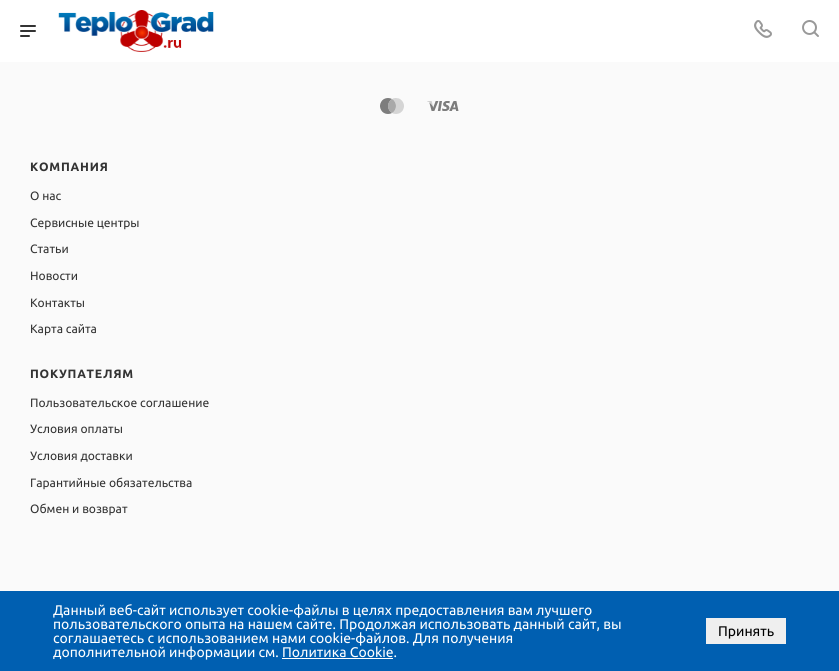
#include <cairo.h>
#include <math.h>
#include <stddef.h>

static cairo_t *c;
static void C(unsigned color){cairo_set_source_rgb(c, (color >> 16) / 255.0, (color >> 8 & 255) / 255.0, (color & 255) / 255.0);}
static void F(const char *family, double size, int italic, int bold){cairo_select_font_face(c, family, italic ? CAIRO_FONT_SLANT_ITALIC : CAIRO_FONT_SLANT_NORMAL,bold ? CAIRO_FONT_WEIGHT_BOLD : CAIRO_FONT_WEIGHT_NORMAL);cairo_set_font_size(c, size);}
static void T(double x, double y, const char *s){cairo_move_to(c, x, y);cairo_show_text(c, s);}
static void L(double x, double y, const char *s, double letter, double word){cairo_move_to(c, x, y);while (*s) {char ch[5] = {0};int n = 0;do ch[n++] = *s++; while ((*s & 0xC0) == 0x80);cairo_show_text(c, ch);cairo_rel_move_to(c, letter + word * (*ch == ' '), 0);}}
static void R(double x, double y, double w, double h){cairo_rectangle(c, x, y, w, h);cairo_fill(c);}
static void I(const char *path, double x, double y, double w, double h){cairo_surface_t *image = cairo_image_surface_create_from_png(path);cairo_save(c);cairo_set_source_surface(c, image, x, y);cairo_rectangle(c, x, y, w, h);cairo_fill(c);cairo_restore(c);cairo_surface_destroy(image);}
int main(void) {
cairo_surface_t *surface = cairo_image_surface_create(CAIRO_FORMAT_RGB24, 839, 671);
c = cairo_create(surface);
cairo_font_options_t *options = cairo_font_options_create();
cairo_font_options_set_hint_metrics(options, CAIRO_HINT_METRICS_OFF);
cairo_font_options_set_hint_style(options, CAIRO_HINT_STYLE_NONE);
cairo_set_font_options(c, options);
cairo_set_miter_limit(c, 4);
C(0xfafafa);
cairo_paint(c);
C(0xffffff);
R(0,0,839,62);
I("1.png",20,25,16,12);
I("2.png",58,10,156,42);
I("3.png",754,20,18,18);
I("4.png",802,20,17,17);
I("5.png",380,98,24,16);
I("6.png",427,101,32,10);
F("Ubuntu",12.1,0,1);
C(0x333333);
L(30,171,"КОМПАНИЯ",.75,0);
F("Ubuntu",12.1,0,0);
T(30,200,"О нас");
T(30,227,"Сервисные центры");
T(30,253,"Статьи");
T(30,280,"Новости");
T(30,307,"Контакты");
T(30,333,"Карта сайта");
F("Ubuntu",12.1,0,1);
L(30,378,"ПОКУПАТЕЛЯМ",.75,0);
F("Ubuntu",12.1,0,0);
T(30,407,"Пользовательское соглашение");
T(30,433,"Условия оплаты");
T(30,460,"Условия доставки");
T(30,487,"Гарантийные обязательства");
T(30,513,"Обмен и возврат");
C(0x005fb1);
R(0,591,839,80);
F("Ubuntu",14,0,0);
C(0xffffff);
T(53,615,"Данный веб-сайт использует cookie-файлы в целях предоставления вам лучшего");
T(53,629,"пользовательского опыта на нашем сайте. Продолжая использовать данный сайт, вы");
T(53,643,"соглашаетесь с использованием нами cookie-файлов. Для получения");
T(53,657,"дополнительной информации см. Политика Cookie.");
R(282,658,111,1);
C(0xefefef);
R(706,618,80,26);
C(0x000000);
T(718,636,"Принять");
cairo_surface_write_to_png(surface, "o.png");
cairo_font_options_destroy(options);
cairo_destroy(c);
cairo_surface_destroy(surface);
return 0;
}
